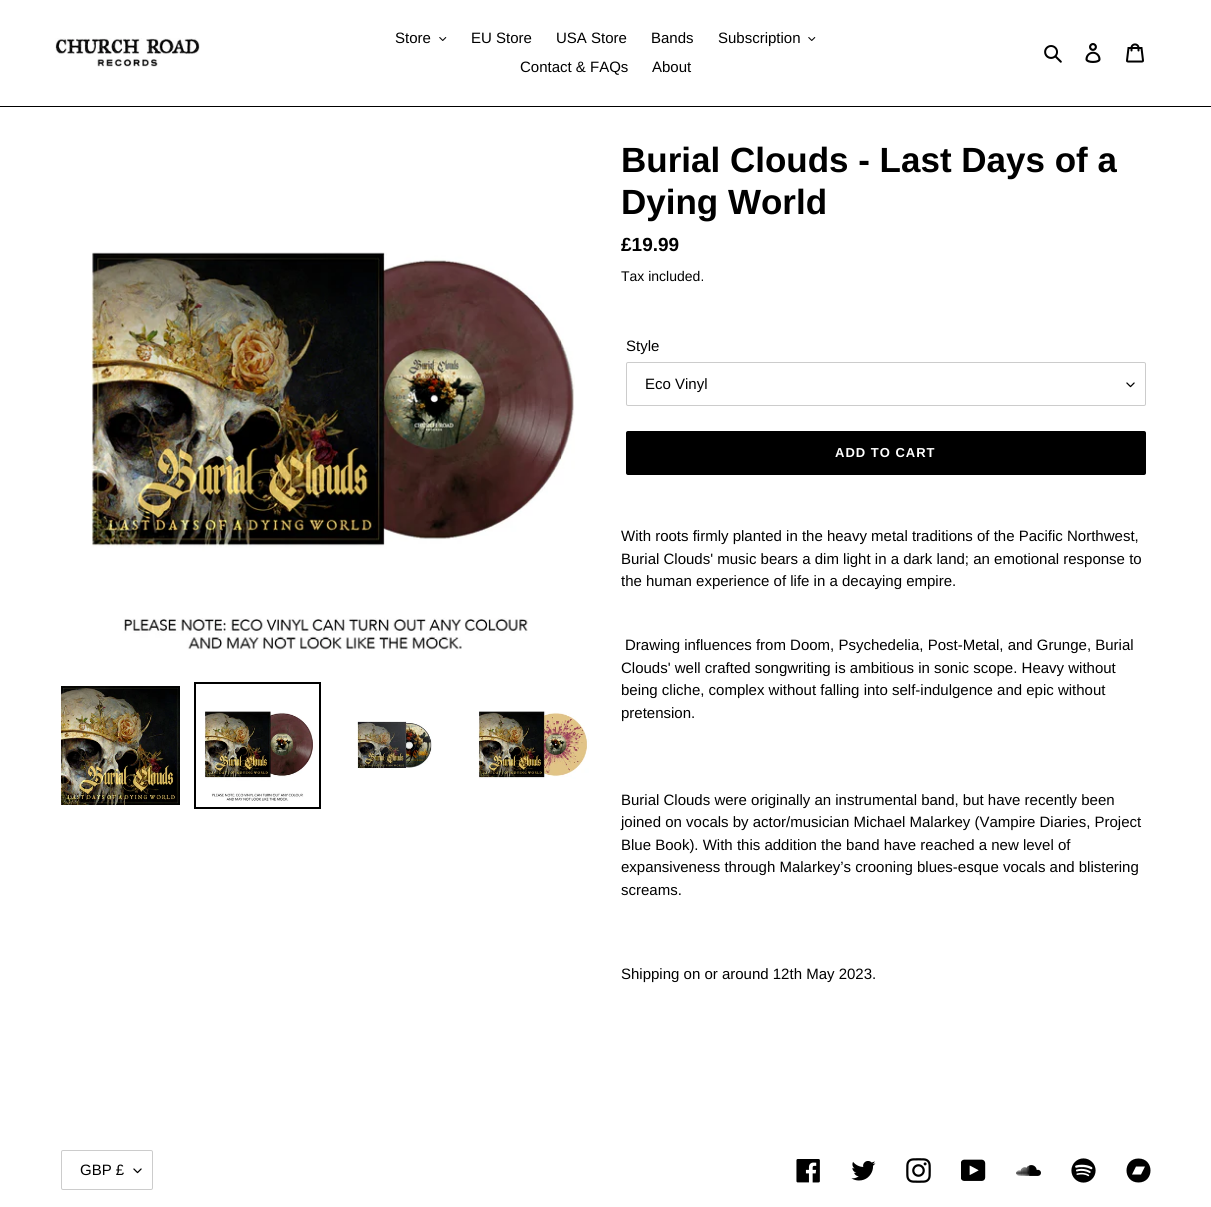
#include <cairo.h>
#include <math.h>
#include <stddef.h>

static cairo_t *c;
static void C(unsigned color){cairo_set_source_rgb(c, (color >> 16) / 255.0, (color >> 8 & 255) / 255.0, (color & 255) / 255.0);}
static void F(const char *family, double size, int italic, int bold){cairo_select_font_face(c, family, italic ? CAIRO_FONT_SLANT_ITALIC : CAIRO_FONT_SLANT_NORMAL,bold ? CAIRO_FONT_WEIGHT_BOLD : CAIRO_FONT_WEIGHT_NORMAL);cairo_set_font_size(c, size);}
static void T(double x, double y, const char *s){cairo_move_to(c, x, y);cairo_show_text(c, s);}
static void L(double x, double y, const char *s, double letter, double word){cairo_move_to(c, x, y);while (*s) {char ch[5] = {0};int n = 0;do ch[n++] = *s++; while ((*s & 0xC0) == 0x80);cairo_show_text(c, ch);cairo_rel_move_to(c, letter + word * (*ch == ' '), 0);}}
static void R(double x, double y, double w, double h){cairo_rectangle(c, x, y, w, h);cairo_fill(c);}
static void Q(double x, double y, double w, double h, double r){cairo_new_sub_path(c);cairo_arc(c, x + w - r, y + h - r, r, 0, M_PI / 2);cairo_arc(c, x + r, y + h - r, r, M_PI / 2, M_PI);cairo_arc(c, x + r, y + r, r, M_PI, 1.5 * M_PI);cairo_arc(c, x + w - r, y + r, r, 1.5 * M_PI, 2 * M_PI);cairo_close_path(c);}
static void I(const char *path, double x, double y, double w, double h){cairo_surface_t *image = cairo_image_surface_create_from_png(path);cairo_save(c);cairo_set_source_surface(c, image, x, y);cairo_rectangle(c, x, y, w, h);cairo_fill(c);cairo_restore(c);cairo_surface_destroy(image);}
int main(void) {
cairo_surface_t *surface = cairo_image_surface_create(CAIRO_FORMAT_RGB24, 1211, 1207);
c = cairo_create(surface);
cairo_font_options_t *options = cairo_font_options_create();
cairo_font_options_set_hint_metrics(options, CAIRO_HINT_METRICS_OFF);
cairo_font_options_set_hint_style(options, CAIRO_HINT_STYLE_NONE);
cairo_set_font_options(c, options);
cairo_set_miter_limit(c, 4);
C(0xffffff);
cairo_paint(c);
C(0x000000);
R(0,106,1211,1);
I("1.png",55,38,145,29);
F("Liberation Sans",15,0,0);
T(395,43,"Store");
I("2.png",439,37,8,4);
T(471,43,"EU Store");
T(556,43,"USA Store");
T(651,43,"Bands");
T(718,43,"Subscription");
I("2.png",808,37,8,4);
T(520,72,"Contact & FAQs");
T(652,72,"About");
I("3.png",1044,45,18,18);
I("4.png",1085,43,16,20);
I("5.png",1126,43,18,20);
I("6.png",91,252,484,398);
I("7.png",61,686,119,119);
cairo_rectangle(c,195,683,125,125);
cairo_stroke(c);
I("8.png",204,711,111,90);
I("9.png",357,721,75,49);
I("10.png",477,711,112,68);
F("Liberation Sans",35,0,1);
T(621,172,"Burial Clouds - Last Days of a");
T(621,214,"Dying World");
F("Liberation Sans",19,0,1);
T(621,251,"£19.99");
F("Liberation Sans",14,0,0);
T(621,281,"Tax included.");
F("Liberation Sans",15,0,0);
T(626,351,"Style");
I("11.png",1126,382,9,6);
Q(626.5,362.5,519,43,1.5);
C(0xcccccc);
cairo_set_line_width(c,1);
cairo_stroke(c);
C(0x000000);
T(645,389,"Eco Vinyl");
Q(626,431,520,44,2);
cairo_fill(c);
F("Liberation Sans",13,0,1);
C(0xffffff);
L(835,457,"ADD TO CART",1,0);
F("Liberation Sans",15,0,0);
C(0x000000);
T(621,541,"With roots firmly planted in the heavy metal traditions of the Pacific Northwest,");
T(621,564,"Burial Clouds' music bears a dim light in a dark land; an emotional response to");
T(621,586,"the human experience of life in a decaying empire.");
T(625,650,"Drawing influences from Doom, Psychedelia, Post-Metal, and Grunge, Burial");
T(621,673,"Clouds' well crafted songwriting is ambitious in sonic scope. Heavy without");
T(621,695,"being cliche, complex without falling into self-indulgence and epic without");
T(621,718,"pretension.");
T(621,805,"Burial Clouds were originally an instrumental band, but have recently been");
T(621,827,"joined on vocals by actor/musician Michael Malarkey (Vampire Diaries, Project");
T(621,850,"Blue Book). With this addition the band have reached a new level of");
T(621,872,"expansiveness through Malarkey’s crooning blues-esque vocals and blistering");
T(621,895,"screams.");
T(621,979,"Shipping on or around 12th May 2023.");
I("11.png",133,1168,9,6);
Q(61.5,1150.5,91,39,1.5);
C(0xcccccc);
cairo_stroke(c);
C(0x000000);
T(80,1175,"GBP £");
I("12.png",796,1159,24,24);
I("13.png",851,1161,25,20);
I("14.png",906,1158,25,25);
I("15.png",961,1159,25,22);
I("16.png",1016,1165,25,11);
I("17.png",1071,1158,25,25);
cairo_new_path(c);
cairo_move_to(c,1138.5,1158.5);
cairo_curve_to(c,1122.5,1158.5,1122.5,1182.5,1138.5,1182.5);
cairo_curve_to(c,1154.5,1182.5,1154.5,1158.5,1138.5,1158.5);
cairo_close_path(c);
cairo_move_to(c,1141,1174.5);
cairo_line_to(c,1132,1174.5);
cairo_line_to(c,1136,1166.5);
cairo_line_to(c,1145,1166.5);
cairo_close_path(c);
cairo_fill(c);
cairo_surface_write_to_png(surface, "o.png");
cairo_font_options_destroy(options);
cairo_destroy(c);
cairo_surface_destroy(surface);
return 0;
}
